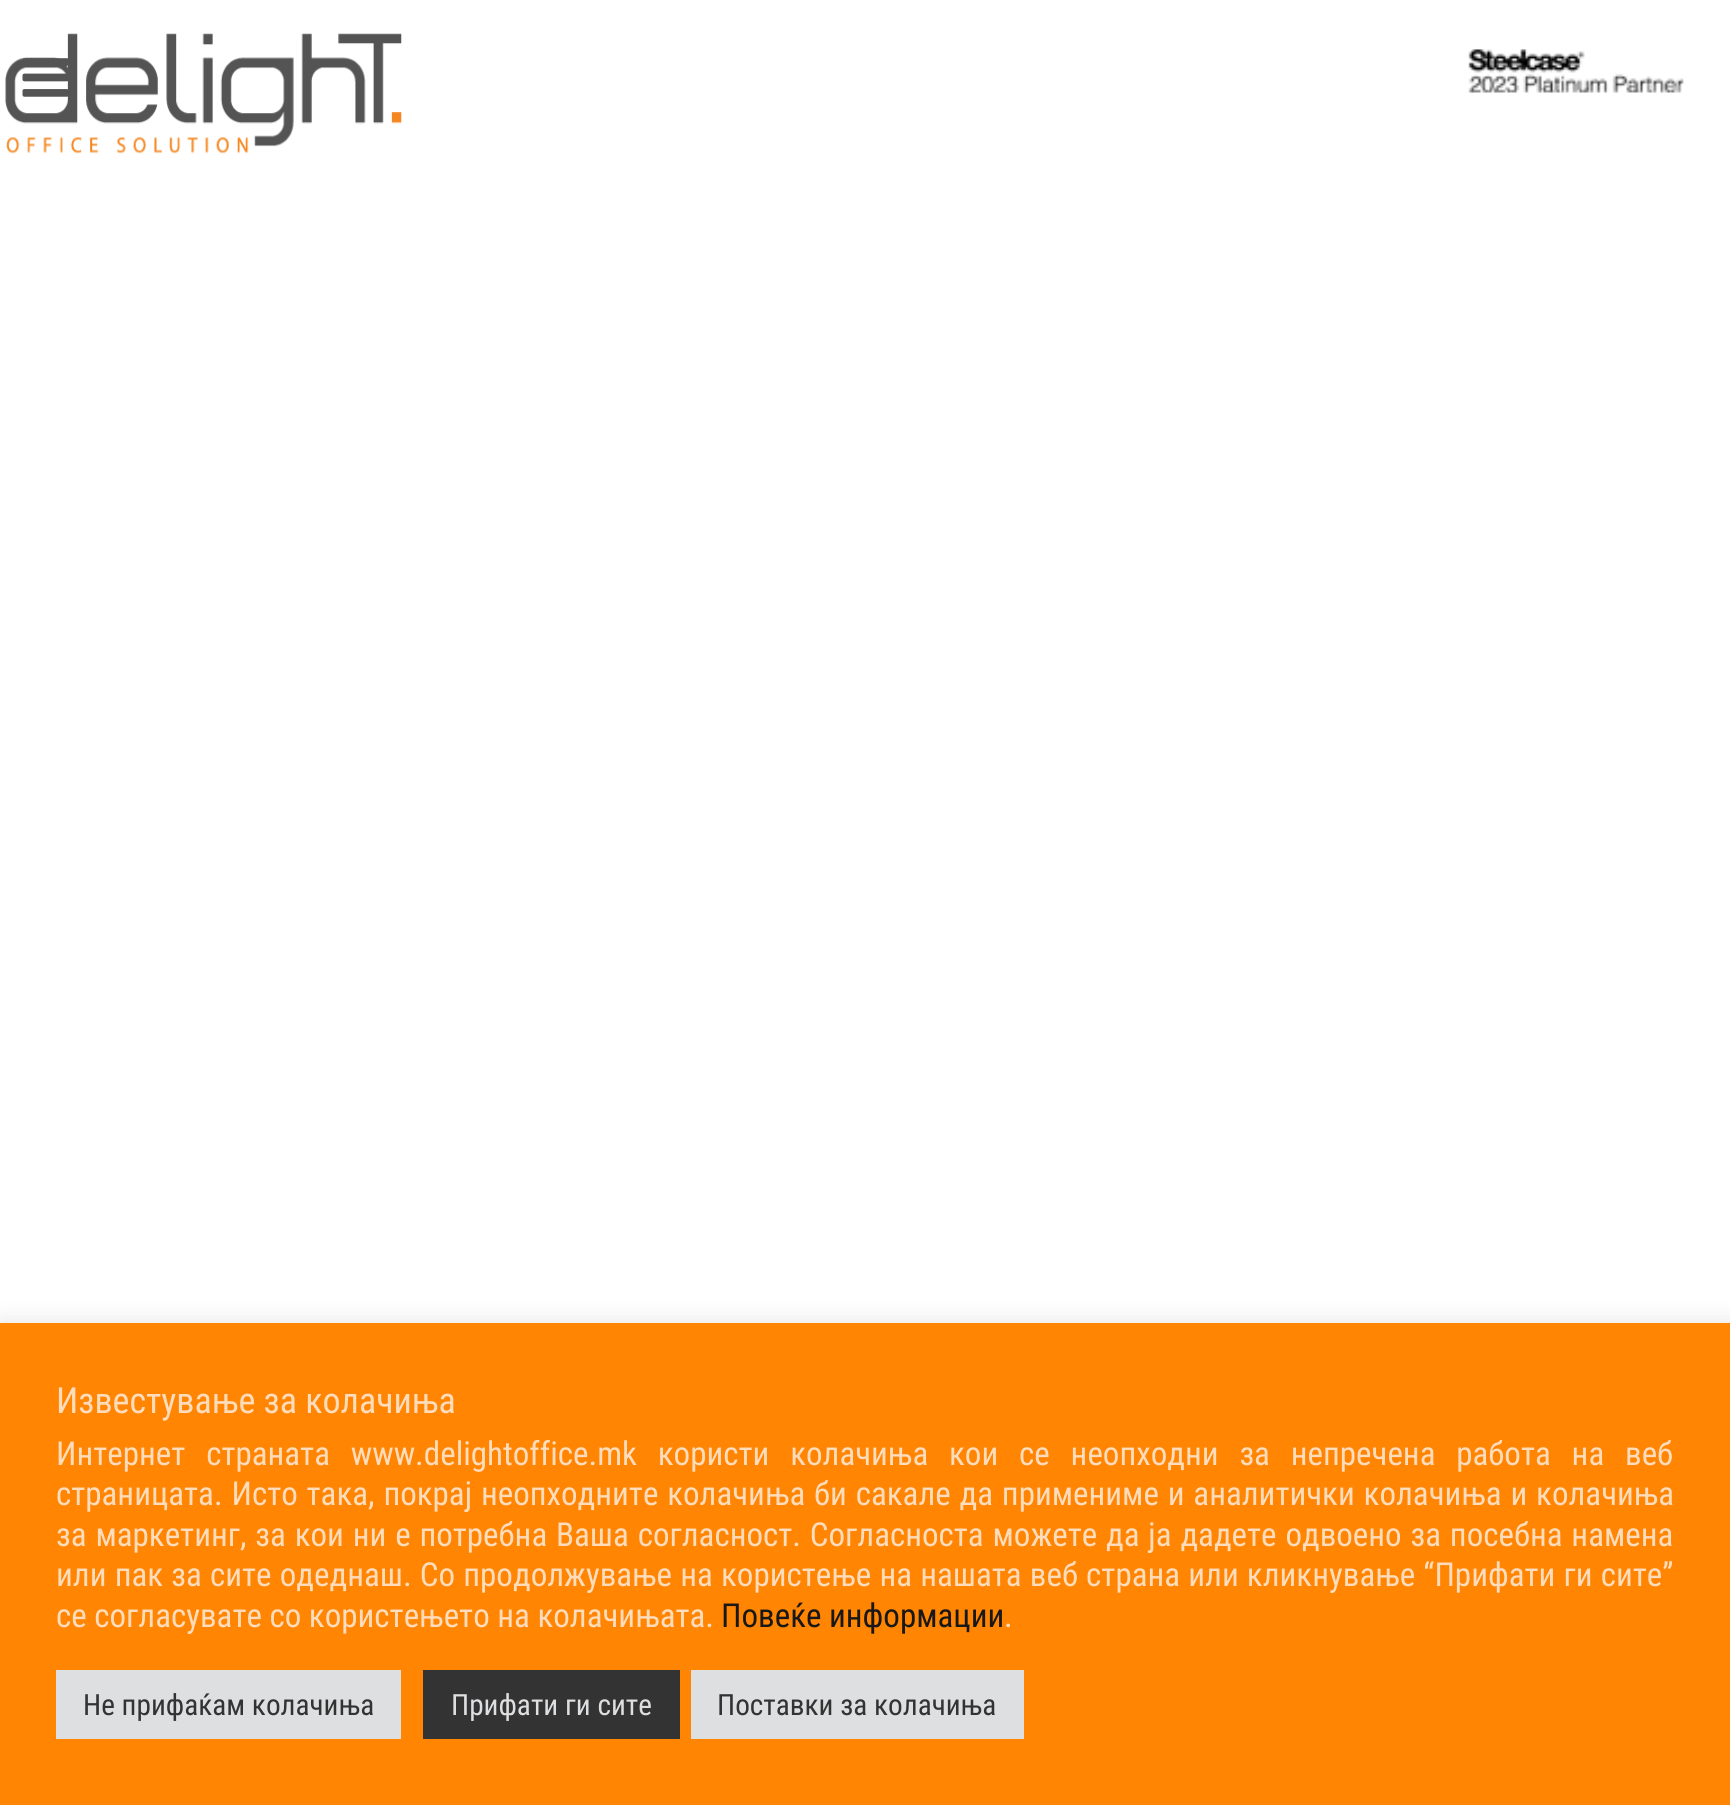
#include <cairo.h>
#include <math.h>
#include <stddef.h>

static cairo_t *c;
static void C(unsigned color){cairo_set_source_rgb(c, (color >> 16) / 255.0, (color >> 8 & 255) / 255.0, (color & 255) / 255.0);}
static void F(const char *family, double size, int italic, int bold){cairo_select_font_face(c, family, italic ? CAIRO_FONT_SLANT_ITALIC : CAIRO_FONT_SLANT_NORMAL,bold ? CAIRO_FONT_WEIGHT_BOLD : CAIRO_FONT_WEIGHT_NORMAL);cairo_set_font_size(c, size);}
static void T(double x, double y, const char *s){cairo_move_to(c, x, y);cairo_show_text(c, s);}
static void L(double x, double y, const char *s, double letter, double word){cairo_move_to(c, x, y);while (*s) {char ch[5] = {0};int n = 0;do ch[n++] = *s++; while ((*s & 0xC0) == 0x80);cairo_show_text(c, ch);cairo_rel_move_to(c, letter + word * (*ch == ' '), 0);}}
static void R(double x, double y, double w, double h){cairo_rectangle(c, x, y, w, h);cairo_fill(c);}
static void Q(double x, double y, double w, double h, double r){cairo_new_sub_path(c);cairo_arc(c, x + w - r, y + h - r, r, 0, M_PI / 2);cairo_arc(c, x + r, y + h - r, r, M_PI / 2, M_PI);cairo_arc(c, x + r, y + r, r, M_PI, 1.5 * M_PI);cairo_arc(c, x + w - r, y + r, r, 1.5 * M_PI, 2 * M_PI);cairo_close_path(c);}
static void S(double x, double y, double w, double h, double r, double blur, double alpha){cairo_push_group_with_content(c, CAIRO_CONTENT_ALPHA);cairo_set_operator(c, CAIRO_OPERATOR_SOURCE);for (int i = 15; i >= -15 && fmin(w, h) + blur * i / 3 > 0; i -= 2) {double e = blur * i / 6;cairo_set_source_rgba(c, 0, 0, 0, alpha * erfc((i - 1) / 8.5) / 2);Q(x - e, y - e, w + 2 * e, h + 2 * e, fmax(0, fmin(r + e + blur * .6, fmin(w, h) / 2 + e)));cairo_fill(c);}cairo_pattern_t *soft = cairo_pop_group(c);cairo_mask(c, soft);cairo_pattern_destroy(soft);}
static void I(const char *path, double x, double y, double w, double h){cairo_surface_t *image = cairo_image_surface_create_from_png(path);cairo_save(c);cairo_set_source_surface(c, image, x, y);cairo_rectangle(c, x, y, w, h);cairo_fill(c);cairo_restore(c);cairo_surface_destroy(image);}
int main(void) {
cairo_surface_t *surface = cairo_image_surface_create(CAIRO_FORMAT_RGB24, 1730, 1805);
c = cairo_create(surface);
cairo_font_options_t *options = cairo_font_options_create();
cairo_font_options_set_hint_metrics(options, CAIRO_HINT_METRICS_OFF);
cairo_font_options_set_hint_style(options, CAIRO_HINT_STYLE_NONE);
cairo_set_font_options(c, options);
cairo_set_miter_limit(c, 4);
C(0xffffff);
cairo_paint(c);
I("1.png",5,33,397,121);
I("2.png",22,58,46,39);
I("3.png",1468,49,216,44);
C(0xacabab);
S(0,1321,1730,484,0,11,.3);
C(0xff8503);
R(0,1323,1730,482);
F("Roboto Condensed",36,0,0);
C(0xffddbc);
T(56,1413,"Известување за колачиња");
F("Roboto Condensed",33,0,0);
L(56,1465,"Интернет страната www.delightoffice.mk користи колачиња кои се неопходни за непречена работа на веб",0,13.25);
L(56,1505,"страницата. Исто така, покрај неопходните колачиња би сакале да примениме и аналитички колачиња и колачиња",0,1.25);
L(56,1546,"за маркетинг, за кои ни е потребна Ваша согласност. Согласноста можете да ја дадете одвоено за посебна намена",0,1.25);
L(56,1586,"или пак за сите одеднаш. Со продолжување на користење на нашата веб страна или кликнување “Прифати ги сите”",0,.6);
T(56,1627,"се согласувате со користењето на колачињата.");
C(0x181818);
T(721,1627,"Повеќе информации");
C(0xffddbc);
T(1004,1627,".");
C(0xdedfe0);
R(56,1670,345,69);
F("Roboto Condensed",29.25,0,0);
C(0x333333);
T(83,1715,"Не прифаќам колачиња");
R(423,1670,257,69);
C(0xdedfe0);
T(451,1715,"Прифати ги сите");
R(691,1670,333,69);
C(0x333333);
T(717,1715,"Поставки за колачиња");
cairo_surface_write_to_png(surface, "o.png");
cairo_font_options_destroy(options);
cairo_destroy(c);
cairo_surface_destroy(surface);
return 0;
}
